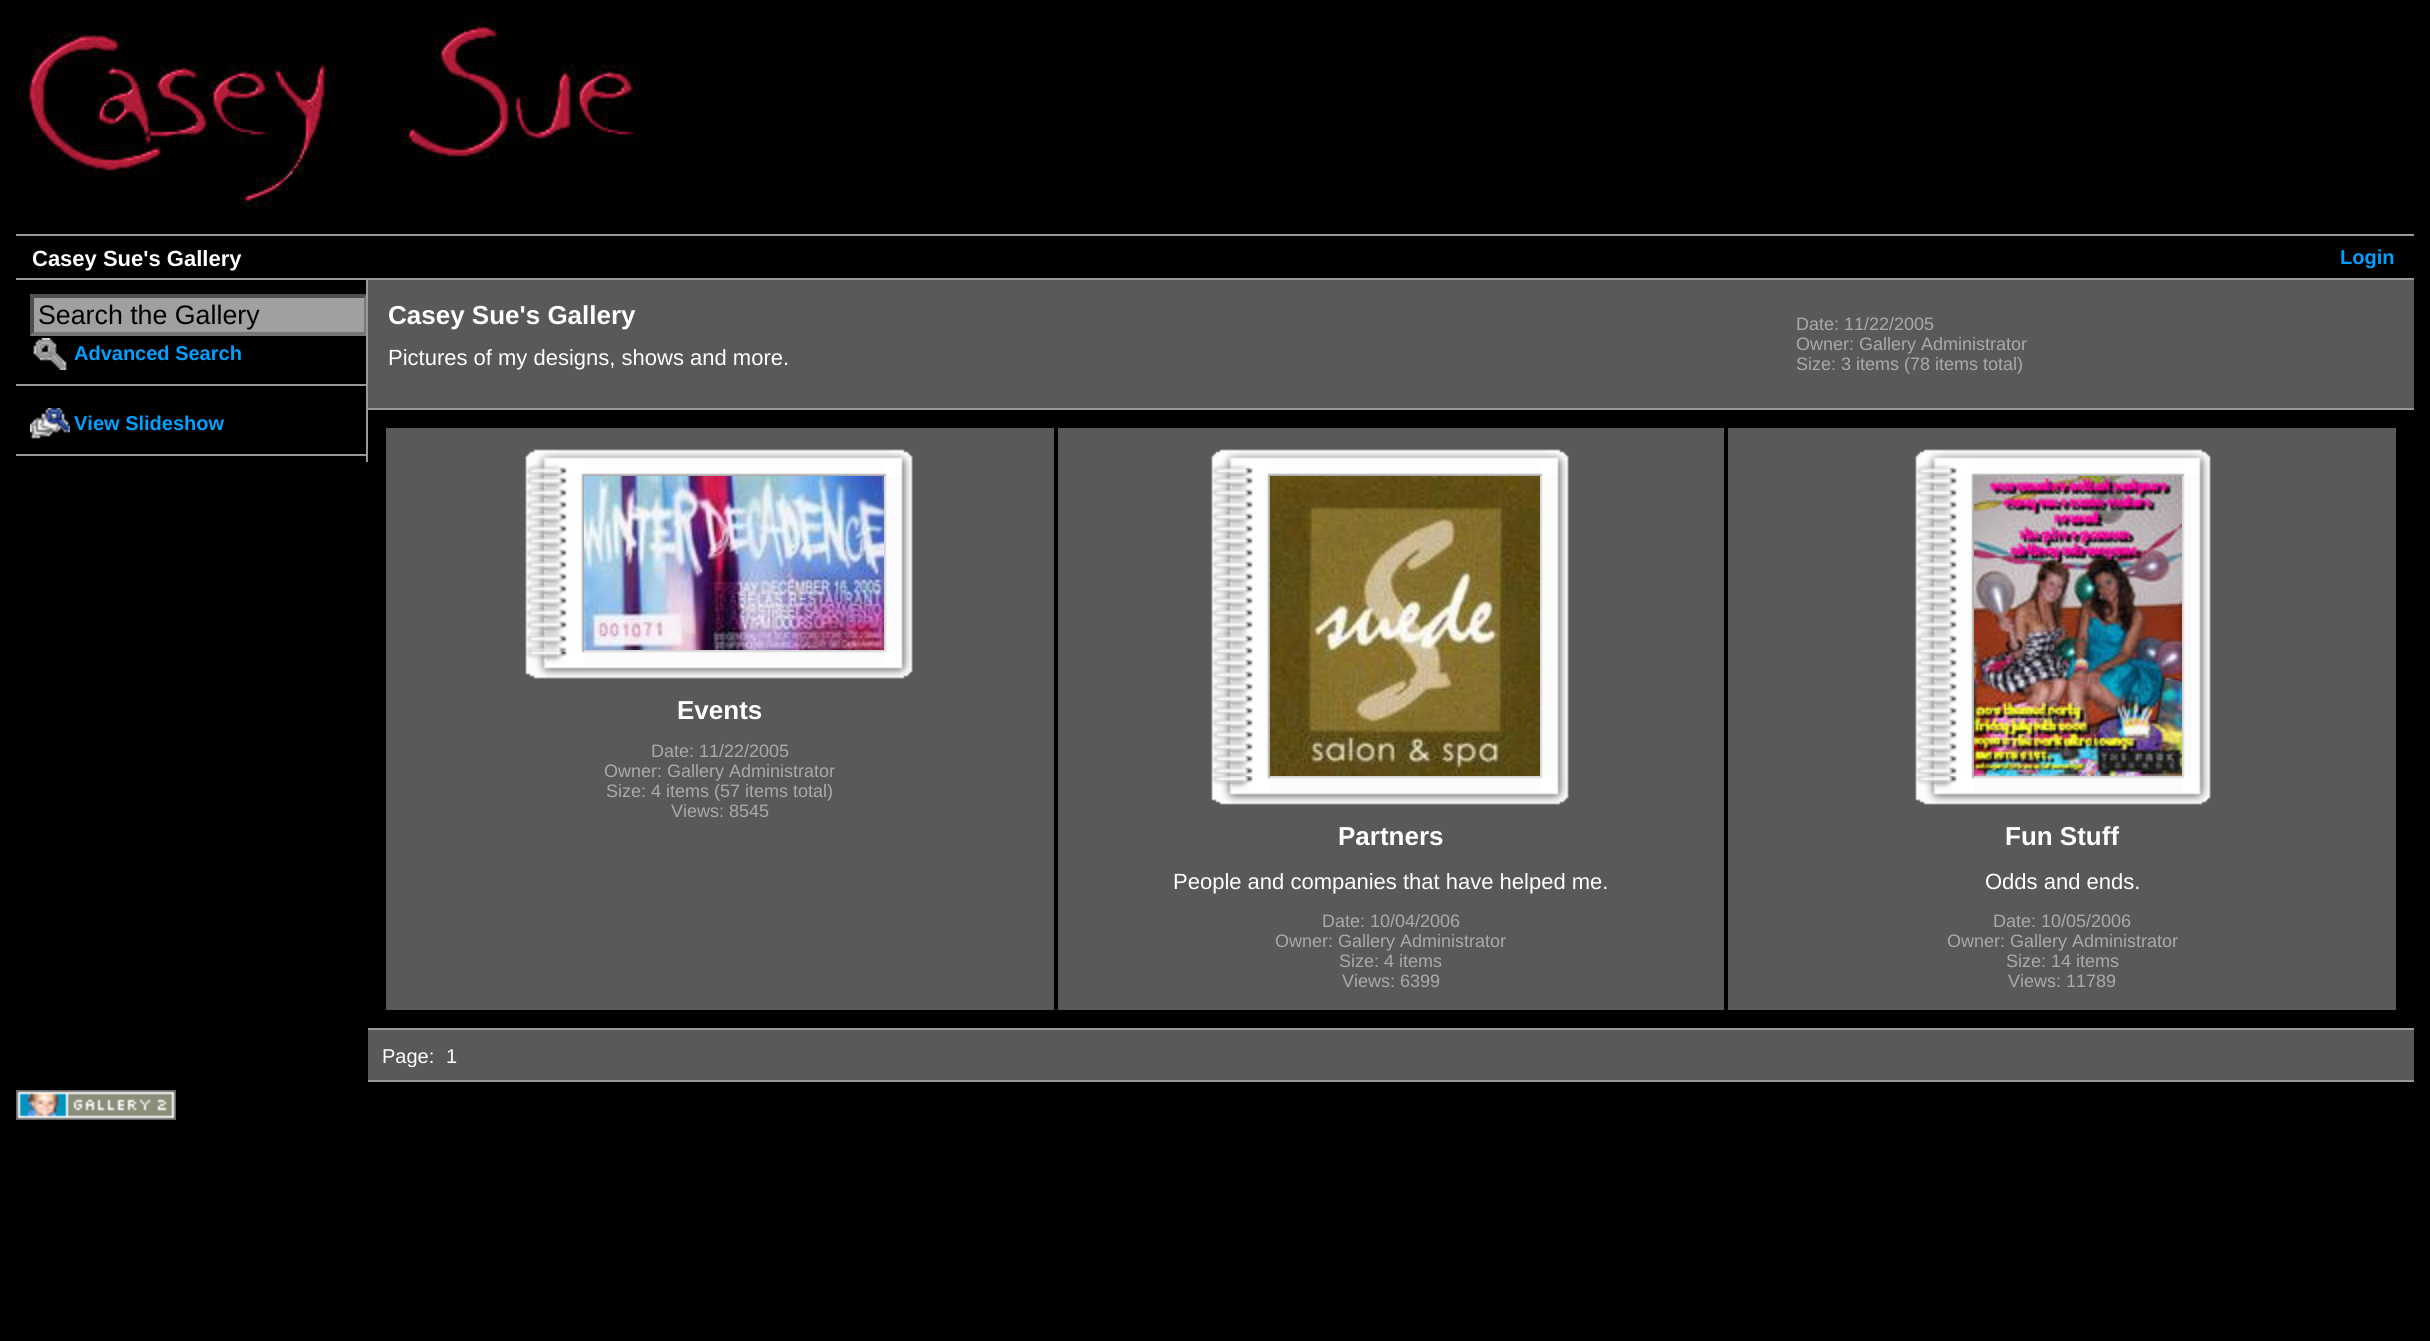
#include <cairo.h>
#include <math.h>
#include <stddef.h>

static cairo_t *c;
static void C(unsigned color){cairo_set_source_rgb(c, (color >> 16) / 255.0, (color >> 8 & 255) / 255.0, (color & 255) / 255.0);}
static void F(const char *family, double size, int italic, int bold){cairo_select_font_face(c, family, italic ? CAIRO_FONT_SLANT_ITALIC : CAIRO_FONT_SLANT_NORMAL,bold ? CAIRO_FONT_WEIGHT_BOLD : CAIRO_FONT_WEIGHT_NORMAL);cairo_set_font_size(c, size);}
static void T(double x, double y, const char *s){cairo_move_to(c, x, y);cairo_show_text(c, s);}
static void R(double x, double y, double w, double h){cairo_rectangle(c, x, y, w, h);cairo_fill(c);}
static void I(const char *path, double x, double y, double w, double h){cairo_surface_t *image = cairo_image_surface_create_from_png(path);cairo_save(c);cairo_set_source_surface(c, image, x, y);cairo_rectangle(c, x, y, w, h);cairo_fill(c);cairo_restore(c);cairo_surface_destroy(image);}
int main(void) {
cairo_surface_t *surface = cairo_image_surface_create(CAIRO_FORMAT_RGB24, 2430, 1341);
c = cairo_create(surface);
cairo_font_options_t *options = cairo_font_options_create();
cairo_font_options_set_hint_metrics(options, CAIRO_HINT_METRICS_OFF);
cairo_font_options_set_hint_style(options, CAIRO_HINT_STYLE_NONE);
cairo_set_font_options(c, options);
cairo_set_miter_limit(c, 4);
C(0x000000);
cairo_paint(c);
I("1.png",16,16,624,193);
C(0x999999);
R(16,234,2398,2);
R(16,278,2398,2);
F("Liberation Sans",22,0,1);
C(0xffffff);
T(32,266,"Casey Sue's Gallery");
F("Liberation Sans",20,0,1);
C(0x00a0ff);
T(2340,264,"Login");
C(0x999999);
R(366,280,2,182);
R(16,384,350,2);
C(0xa0a0a0);
R(30,294,336,42);
cairo_save(c);
cairo_rectangle(c,16,280,350,182);
cairo_clip(c);
C(0x4f4f4f);
cairo_new_path(c);
cairo_move_to(c,30,294);
cairo_line_to(c,368,294);
cairo_line_to(c,364,298);
cairo_line_to(c,34,298);
cairo_close_path(c);
cairo_fill(c);
C(0x767676);
cairo_new_path(c);
cairo_move_to(c,368,294);
cairo_line_to(c,368,336);
cairo_line_to(c,364,332);
cairo_line_to(c,364,298);
cairo_close_path(c);
cairo_fill(c);
cairo_new_path(c);
cairo_move_to(c,368,336);
cairo_line_to(c,30,336);
cairo_line_to(c,34,332);
cairo_line_to(c,364,332);
cairo_close_path(c);
cairo_fill(c);
cairo_restore(c);
C(0x4f4f4f);
cairo_new_path(c);
cairo_move_to(c,30,336);
cairo_line_to(c,30,294);
cairo_line_to(c,34,298);
cairo_line_to(c,34,332);
cairo_close_path(c);
cairo_fill(c);
F("Liberation Sans",26.75,0,0);
C(0x000000);
T(38,324,"Search the Gallery");
I("2.png",33,338,34,32);
F("Liberation Sans",20,0,1);
C(0x00a0ff);
T(74,360,"Advanced Search");
C(0x999999);
R(16,454,350,2);
I("3.png",30,408,40,31);
C(0x00a0ff);
T(74,430,"View Slideshow");
C(0x595959);
R(368,280,2046,128);
C(0x999999);
R(368,408,2046,2);
F("Liberation Sans",26,0,1);
C(0xffffff);
T(388,324,"Casey Sue's Gallery");
F("Liberation Sans",22,0,0);
T(388,365,"Pictures of my designs, shows and more.");
F("Liberation Sans",18,0,0);
C(0xaaaaaa);
T(1796,330,"Date: 11/22/2005");
T(1796,350,"Owner: Gallery Administrator");
T(1796,370,"Size: 3 items (78 items total)");
C(0x999999);
R(368,1028,2046,2);
C(0x595959);
R(386,428,668,582);
I("4.png",525,449,59,27);
I("5.png",584,449,300,27);
I("6.png",884,449,29,27);
I("7.png",525,476,59,174);
I("8.png",584,476,300,174);
I("9.png",884,476,29,174);
I("10.png",525,650,59,29);
I("11.png",584,650,300,29);
I("12.png",884,650,29,29);
F("Liberation Sans",26,0,1);
C(0xffffff);
T(677,719,"Events");
F("Liberation Sans",18,0,0);
C(0xaaaaaa);
T(651,757,"Date: 11/22/2005");
T(604,777,"Owner: Gallery Administrator");
T(606,797,"Size: 4 items (57 items total)");
T(671,817,"Views: 8545");
C(0x595959);
R(1058,428,666,582);
I("4.png",1211,449,59,27);
I("13.png",1270,449,270,27);
I("6.png",1540,449,29,27);
I("14.png",1211,476,59,300);
I("15.png",1270,476,270,300);
I("16.png",1540,476,29,300);
I("10.png",1211,776,59,29);
I("17.png",1270,776,270,29);
I("12.png",1540,776,29,29);
F("Liberation Sans",26,0,1);
C(0xffffff);
T(1338,845,"Partners");
F("Liberation Sans",22,0,0);
T(1173,889,"People and companies that have helped me.");
F("Liberation Sans",18,0,0);
C(0xaaaaaa);
T(1322,927,"Date: 10/04/2006");
T(1275,947,"Owner: Gallery Administrator");
T(1339,967,"Size: 4 items");
T(1342,987,"Views: 6399");
C(0x595959);
R(1728,428,668,582);
I("4.png",1915,449,59,27);
I("18.png",1974,449,208,27);
I("6.png",2182,449,29,27);
I("14.png",1915,476,59,300);
I("19.png",1974,476,208,300);
I("16.png",2182,476,29,300);
I("10.png",1915,776,59,29);
I("20.png",1974,776,208,29);
I("12.png",2182,776,29,29);
F("Liberation Sans",26,0,1);
C(0xffffff);
T(2005,845,"Fun Stuff");
F("Liberation Sans",22,0,0);
T(1985,889,"Odds and ends.");
F("Liberation Sans",18,0,0);
C(0xaaaaaa);
T(1993,927,"Date: 10/05/2006");
T(1947,947,"Owner: Gallery Administrator");
T(2006,967,"Size: 14 items");
T(2008,987,"Views: 11789");
C(0x595959);
R(368,1030,2046,50);
C(0x999999);
R(368,1080,2046,2);
F("Liberation Sans",20,0,0);
C(0xffffff);
T(382,1063,"Page:");
T(446,1063,"1");
I("21.png",16,1090,160,30);
cairo_surface_write_to_png(surface, "o.png");
cairo_font_options_destroy(options);
cairo_destroy(c);
cairo_surface_destroy(surface);
return 0;
}
